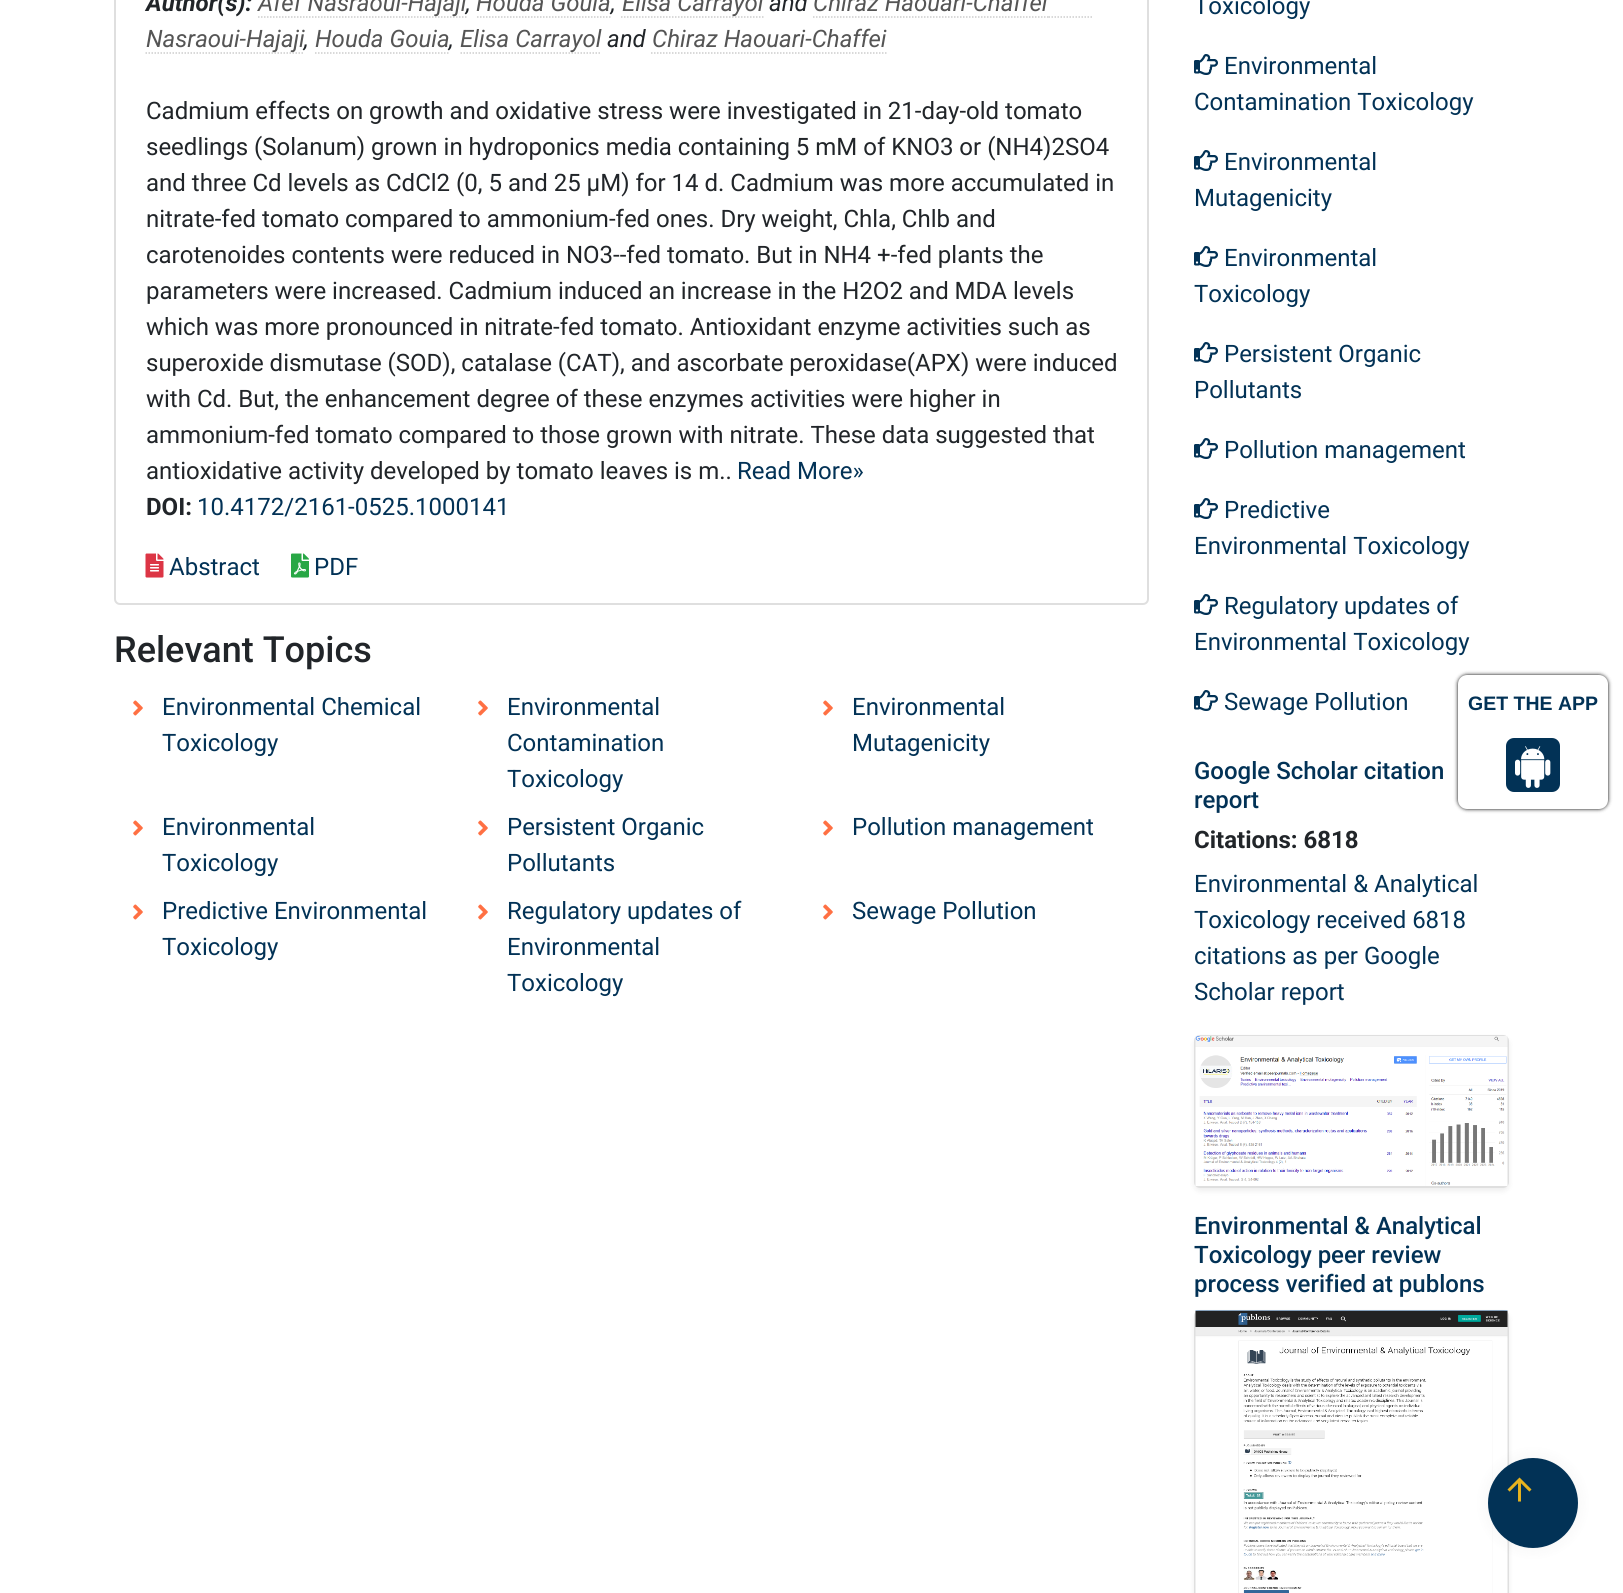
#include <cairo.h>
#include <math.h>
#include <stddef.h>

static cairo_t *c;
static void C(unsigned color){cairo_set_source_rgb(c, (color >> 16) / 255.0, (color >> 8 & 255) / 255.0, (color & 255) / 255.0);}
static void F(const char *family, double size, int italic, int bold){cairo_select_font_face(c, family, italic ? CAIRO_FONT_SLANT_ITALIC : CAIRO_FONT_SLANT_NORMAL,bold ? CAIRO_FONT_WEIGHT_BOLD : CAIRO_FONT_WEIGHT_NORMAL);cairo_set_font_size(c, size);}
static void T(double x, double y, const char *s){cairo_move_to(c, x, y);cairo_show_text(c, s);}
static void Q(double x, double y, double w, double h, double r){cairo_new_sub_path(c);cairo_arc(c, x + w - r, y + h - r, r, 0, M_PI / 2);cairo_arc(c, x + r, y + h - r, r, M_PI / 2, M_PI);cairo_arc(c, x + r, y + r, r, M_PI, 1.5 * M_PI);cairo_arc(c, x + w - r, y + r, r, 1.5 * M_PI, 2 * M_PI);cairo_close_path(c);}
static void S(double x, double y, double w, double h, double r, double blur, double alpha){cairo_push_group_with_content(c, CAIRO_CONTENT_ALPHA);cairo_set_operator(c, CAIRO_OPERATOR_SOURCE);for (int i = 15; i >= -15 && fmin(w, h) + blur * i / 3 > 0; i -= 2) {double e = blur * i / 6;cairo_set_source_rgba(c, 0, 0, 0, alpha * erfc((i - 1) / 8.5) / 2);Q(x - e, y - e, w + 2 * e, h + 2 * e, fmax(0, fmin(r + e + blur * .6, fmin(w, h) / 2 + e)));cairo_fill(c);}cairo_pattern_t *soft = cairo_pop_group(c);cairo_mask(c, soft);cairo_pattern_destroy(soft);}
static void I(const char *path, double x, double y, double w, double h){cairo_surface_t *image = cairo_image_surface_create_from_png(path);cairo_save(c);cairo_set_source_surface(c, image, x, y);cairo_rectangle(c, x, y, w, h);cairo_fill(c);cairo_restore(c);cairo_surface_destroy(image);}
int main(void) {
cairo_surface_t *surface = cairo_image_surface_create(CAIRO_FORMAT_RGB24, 1623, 1593);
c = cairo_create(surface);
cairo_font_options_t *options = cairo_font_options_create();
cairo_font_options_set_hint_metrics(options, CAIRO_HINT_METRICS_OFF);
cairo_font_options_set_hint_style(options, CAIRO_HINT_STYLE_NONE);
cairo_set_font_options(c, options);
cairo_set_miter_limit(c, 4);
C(0xffffff);
cairo_paint(c);
Q(115,-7,1033,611,5);
C(0xdfdfdf);
cairo_stroke(c);
F("Roboto",24,1,1);
C(0x212529);
T(146,11,"Author(s):");
cairo_new_path(c);
cairo_move_to(c,258,17);
cairo_line_to(c,466.5,17);
C(0xcccccc);
cairo_set_line_width(c,1.5);
cairo_set_dash(c,(double[]){1.5,1.5},2,0);
cairo_stroke(c);
F("Roboto",24,1,0);
C(0x555555);
T(258,11,"Afef Nasraoui-Hajaji");
C(0x212529);
T(466,11,",");
C(0x555555);
T(476,11,"Houda Gouia");
C(0x212529);
T(611,11,",");
cairo_new_path(c);
cairo_move_to(c,477,17);
cairo_line_to(c,610.5,17);
C(0xcccccc);
cairo_stroke(c);
cairo_new_path(c);
cairo_move_to(c,621,17);
cairo_line_to(c,763.5,17);
cairo_stroke(c);
C(0x555555);
T(622,11,"Elisa Carrayol");
C(0x212529);
T(769,11,"and");
C(0x555555);
T(813,11,"Chiraz Haouari-Chaffei");
cairo_new_path(c);
cairo_move_to(c,813,17);
cairo_line_to(c,1048.5,17);
C(0xcccccc);
cairo_stroke(c);
cairo_new_path(c);
cairo_move_to(c,1048.5,17);
cairo_line_to(c,1092,17);
cairo_stroke(c);
cairo_new_path(c);
cairo_move_to(c,145.5,53);
cairo_line_to(c,304.5,53);
cairo_stroke(c);
C(0x555555);
T(146,47,"Nasraoui-Hajaji");
C(0x212529);
T(304,47,",");
C(0x555555);
T(315,47,"Houda Gouia");
C(0x212529);
T(449,47,",");
cairo_new_path(c);
cairo_move_to(c,315,53);
cairo_line_to(c,450,53);
C(0xcccccc);
cairo_stroke(c);
cairo_new_path(c);
cairo_move_to(c,460.5,53);
cairo_line_to(c,601.5,53);
cairo_stroke(c);
C(0x555555);
T(460,47,"Elisa Carrayol");
C(0x212529);
T(607,47,"and");
C(0x555555);
T(652,47,"Chiraz Haouari-Chaffei");
cairo_new_path(c);
cairo_move_to(c,651,53);
cairo_line_to(c,886.5,53);
C(0xcccccc);
cairo_stroke(c);
F("Roboto",24,0,0);
C(0x212529);
T(146,119,"Cadmium effects on growth and oxidative stress were investigated in 21-day-old tomato");
T(146,155,"seedlings (Solanum) grown in hydroponics media containing 5 mM of KNO3 or (NH4)2SO4");
T(146,191,"and three Cd levels as CdCl2 (0, 5 and 25 μM) for 14 d. Cadmium was more accumulated in");
T(146,227,"nitrate-fed tomato compared to ammonium-fed ones. Dry weight, Chla, Chlb and");
T(146,263,"carotenoides contents were reduced in NO3--fed tomato. But in NH4 +-fed plants the");
T(146,299,"parameters were increased. Cadmium induced an increase in the H2O2 and MDA levels");
T(146,335,"which was more pronounced in nitrate-fed tomato. Antioxidant enzyme activities such as");
T(146,371,"superoxide dismutase (SOD), catalase (CAT), and ascorbate peroxidase(APX) were induced");
T(146,407,"with Cd. But, the enhancement degree of these enzymes activities were higher in");
T(146,443,"ammonium-fed tomato compared to those grown with nitrate. These data suggested that");
T(146,479,"antioxidative activity developed by tomato leaves is m..");
C(0x023256);
T(737,479,"Read More»");
F("Roboto",24,0,1);
C(0x212529);
T(146,515,"DOI:");
F("Roboto",24,0,0);
C(0x023256);
T(197,515,"10.4172/2161-0525.1000141");
I("1.png",145,553,19,25);
T(169,575,"Abstract");
I("2.png",291,553,18,25);
T(314,575,"PDF");
F("Roboto Medium",36,0,0);
C(0x212529);
T(114,662,"Relevant Topics");
I("3.png",133,700,10,16);
F("Roboto",24,0,0);
C(0x023256);
T(162,715,"Environmental Chemical");
T(162,751,"Toxicology");
I("3.png",478,700,10,16);
T(507,715,"Environmental");
T(507,751,"Contamination");
T(507,787,"Toxicology");
I("3.png",823,700,10,16);
T(852,715,"Environmental");
T(852,751,"Mutagenicity");
I("3.png",133,820,10,16);
T(162,835,"Environmental");
T(162,871,"Toxicology");
I("3.png",478,820,10,16);
T(507,835,"Persistent Organic");
T(507,871,"Pollutants");
I("3.png",823,820,10,16);
T(852,835,"Pollution management");
I("3.png",133,904,10,16);
T(162,919,"Predictive Environmental");
T(162,955,"Toxicology");
I("3.png",478,904,10,16);
T(507,919,"Regulatory updates of");
T(507,955,"Environmental");
T(507,991,"Toxicology");
I("3.png",823,904,10,16);
T(852,919,"Sewage Pollution");
T(1194,14,"Toxicology");
I("4.png",1194,54,24,21);
T(1224,74,"Environmental");
T(1194,110,"Contamination Toxicology");
I("4.png",1194,150,24,21);
T(1224,170,"Environmental");
T(1194,206,"Mutagenicity");
I("4.png",1194,246,24,21);
T(1224,266,"Environmental");
T(1194,302,"Toxicology");
I("4.png",1194,342,24,21);
T(1224,362,"Persistent Organic");
T(1194,398,"Pollutants");
I("4.png",1194,438,24,21);
T(1224,458,"Pollution management");
I("4.png",1194,498,24,21);
T(1224,518,"Predictive");
T(1194,554,"Environmental Toxicology");
I("4.png",1194,594,24,21);
T(1224,614,"Regulatory updates of");
T(1194,650,"Environmental Toxicology");
I("4.png",1194,690,24,21);
T(1224,710,"Sewage Pollution");
F("Roboto Medium",24,0,0);
T(1194,779,"Google Scholar citation");
T(1194,808,"report");
F("Roboto",24,0,1);
C(0x212529);
T(1194,848,"Citations: 6818");
F("Roboto",24,0,0);
C(0x023256);
T(1194,892,"Environmental & Analytical");
T(1194,928,"Toxicology received 6818");
T(1194,964,"citations as per Google");
T(1194,1000,"Scholar report");
C(0x000000);
S(1194,1038,315,153,6,3,.07);
Q(1195,1036,313,151,5);
C(0xdfdfdf);
cairo_set_line_width(c,2);
cairo_set_dash(c,NULL,0,0);
cairo_stroke(c);
I("5.png",1195,1036,313,150);
F("Roboto Medium",24,0,0);
C(0x023256);
T(1194,1234,"Environmental & Analytical");
T(1194,1263,"Toxicology peer review");
T(1194,1292,"process verified at publons");
C(0x000000);
S(1194,1313,315,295,6,3,.07);
Q(1195,1311,313,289,5);
C(0xdfdfdf);
cairo_stroke(c);
I("6.png",1195,1310,313,283);
C(0x000000);
S(1458,675,150,134,9,2,1);
C(0xffffff);
Q(1459,676,148,132,8);
cairo_fill_preserve(c);
cairo_stroke(c);
F("Liberation Sans",19.5,0,1);
C(0x023256);
T(1468,710,"GET THE APP");
Q(1506,738,54,54,8);
cairo_fill(c);
I("7.png",1515,746,36,42);
C(0x000000);
S(1488,1458,90,90,45,7.5,.05);
C(0x023256);
cairo_arc(c,1533,1503,45,0,2 * M_PI);
cairo_fill(c);
I("8.png",1507,1477,25,25);
cairo_surface_write_to_png(surface, "o.png");
cairo_font_options_destroy(options);
cairo_destroy(c);
cairo_surface_destroy(surface);
return 0;
}
